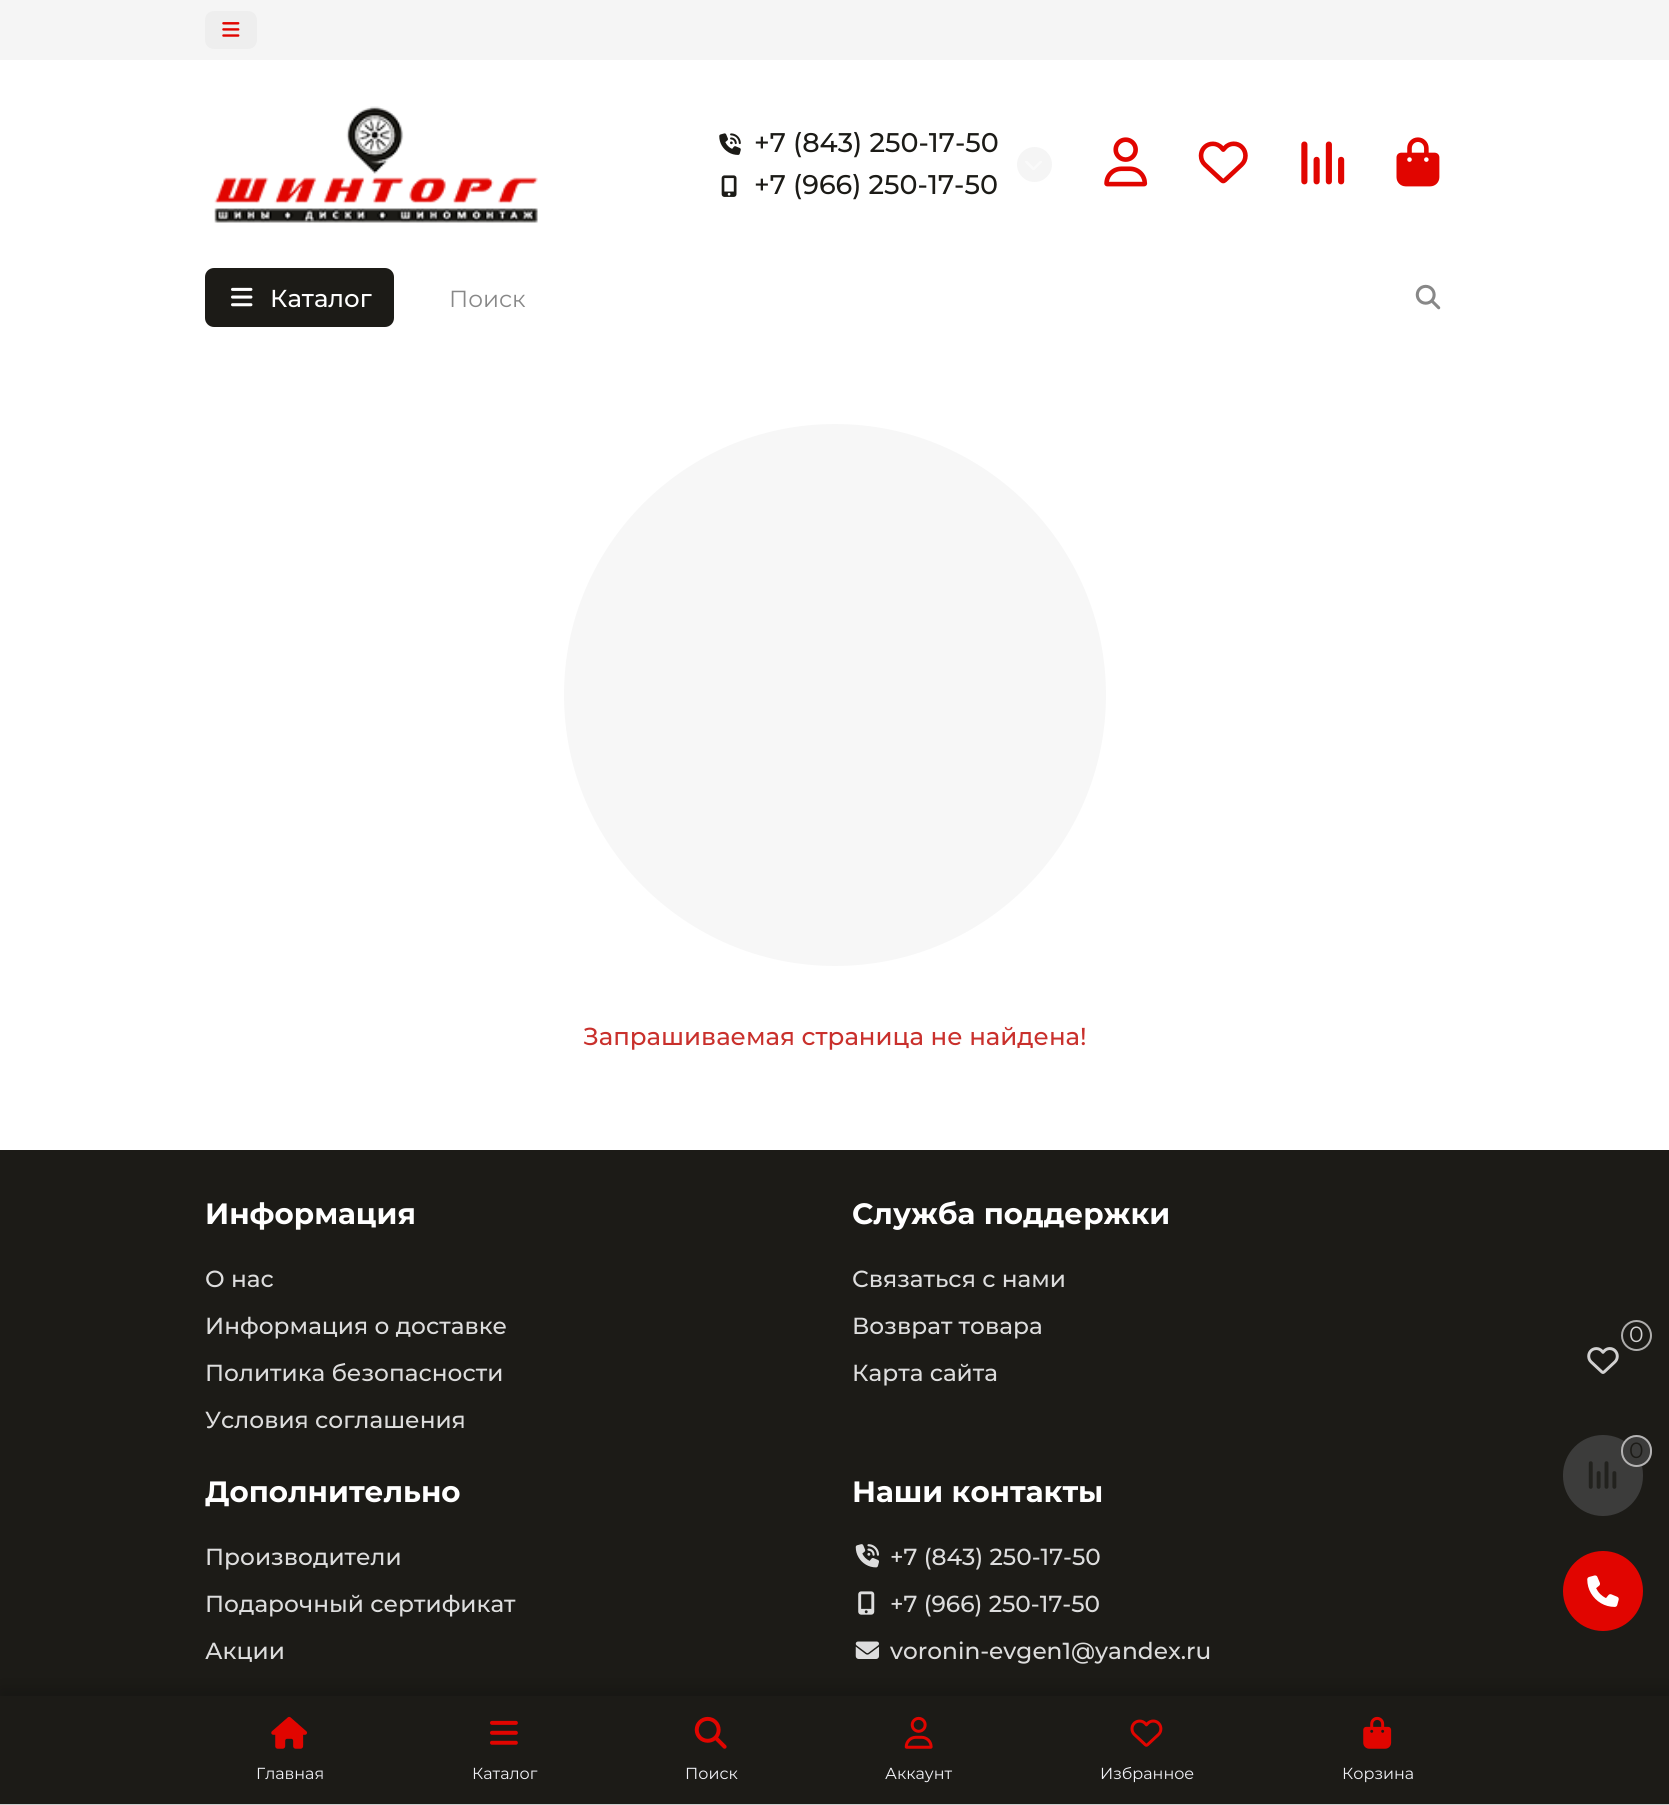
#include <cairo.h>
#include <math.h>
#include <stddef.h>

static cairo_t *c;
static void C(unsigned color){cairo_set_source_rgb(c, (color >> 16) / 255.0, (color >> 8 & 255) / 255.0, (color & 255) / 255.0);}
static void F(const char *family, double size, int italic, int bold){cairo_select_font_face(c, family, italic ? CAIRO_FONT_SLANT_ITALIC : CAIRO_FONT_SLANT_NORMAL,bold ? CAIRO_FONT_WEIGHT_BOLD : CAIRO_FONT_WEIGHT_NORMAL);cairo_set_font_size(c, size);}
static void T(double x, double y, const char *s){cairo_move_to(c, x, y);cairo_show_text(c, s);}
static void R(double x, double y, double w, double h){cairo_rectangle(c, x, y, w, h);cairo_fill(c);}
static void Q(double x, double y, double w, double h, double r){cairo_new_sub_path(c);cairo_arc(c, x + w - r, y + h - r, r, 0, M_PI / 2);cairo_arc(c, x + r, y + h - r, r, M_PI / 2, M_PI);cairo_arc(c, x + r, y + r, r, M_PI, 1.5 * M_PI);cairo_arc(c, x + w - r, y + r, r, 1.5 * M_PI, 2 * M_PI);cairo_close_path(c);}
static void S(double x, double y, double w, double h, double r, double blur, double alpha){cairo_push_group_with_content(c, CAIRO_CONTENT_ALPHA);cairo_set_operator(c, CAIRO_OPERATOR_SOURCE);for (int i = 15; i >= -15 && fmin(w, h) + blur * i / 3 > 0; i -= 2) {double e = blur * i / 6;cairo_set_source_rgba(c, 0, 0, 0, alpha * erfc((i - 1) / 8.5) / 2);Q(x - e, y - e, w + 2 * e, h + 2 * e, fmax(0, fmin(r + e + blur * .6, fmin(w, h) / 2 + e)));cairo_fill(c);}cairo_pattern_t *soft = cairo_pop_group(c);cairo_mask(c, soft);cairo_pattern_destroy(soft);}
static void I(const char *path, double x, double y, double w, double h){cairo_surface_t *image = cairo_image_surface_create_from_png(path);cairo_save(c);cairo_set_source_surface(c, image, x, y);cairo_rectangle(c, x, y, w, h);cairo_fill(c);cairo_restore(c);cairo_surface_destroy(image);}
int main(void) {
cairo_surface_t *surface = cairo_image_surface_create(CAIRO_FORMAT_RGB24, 1669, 1805);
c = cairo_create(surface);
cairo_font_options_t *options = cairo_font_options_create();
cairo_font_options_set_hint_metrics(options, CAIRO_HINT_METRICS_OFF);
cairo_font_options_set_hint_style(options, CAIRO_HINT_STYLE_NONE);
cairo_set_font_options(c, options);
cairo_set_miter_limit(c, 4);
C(0xffffff);
cairo_paint(c);
C(0xf5f5f5);
R(0,0,1669,60);
C(0xeeeeee);
Q(205,11,52,38,9);
cairo_fill(c);
I("1.png",222,22,18,15);
I("2.png",214,106,324,117);
I("3.png",719,133,22,22);
F("Montserrat Medium",27,0,0);
C(0x1c1b17);
T(754,152,"+7 (843) 250-17-50");
C(0xf5f5f5);
cairo_new_path(c);
cairo_arc(c,1034.5,164.5,17.5,0,2 * M_PI);
cairo_fill(c);
I("4.png",1025,161,17,9);
I("5.png",721,175,16,22);
C(0x1c1b17);
T(754,194,"+7 (966) 250-17-50");
I("6.png",1104,137,44,50);
I("7.png",1198,141,50,43);
I("8.png",1301,141,44,44);
I("9.png",1396,137,44,50);
Q(205,268,189,59,9);
cairo_fill(c);
I("10.png",231,287,22,20);
F("Montserrat Medium",24.5,0,0);
C(0xffffff);
T(270,307,"Каталог");
F("Montserrat",23.25,0,0);
C(0x888888);
T(449,307,"Поиск");
I("11.png",1415,284,26,26);
C(0xf7f7f7);
cairo_arc(c,835,695,271,0,2 * M_PI);
cairo_fill(c);
F("Montserrat Medium",24.5,0,0);
C(0xc9302c);
T(583,1045,"Запрашиваемая страница не найдена!");
C(0x1c1b17);
R(0,1150,1669,546);
F("Montserrat",29.4,0,1);
C(0xffffff);
T(205,1224,"Информация");
F("Montserrat Medium",23.25,0,0);
C(0xdddddd);
T(205,1287,"О нас");
T(205,1334,"Информация о доставке");
T(205,1381,"Политика безопасности");
T(205,1428,"Условия соглашения");
F("Montserrat",29.4,0,1);
C(0xffffff);
T(852,1224,"Служба поддержки");
F("Montserrat Medium",23.25,0,0);
C(0xdddddd);
T(852,1287,"Связаться с нами");
T(852,1334,"Возврат товара");
T(852,1381,"Карта сайта");
F("Montserrat",29.4,0,1);
C(0xffffff);
T(205,1502,"Дополнительно");
F("Montserrat Medium",23.25,0,0);
C(0xdddddd);
T(205,1565,"Производители");
T(205,1612,"Подарочный сертификат");
T(205,1659,"Акции");
F("Montserrat",29.4,0,1);
C(0xffffff);
T(852,1502,"Наши контакты");
I("12.png",855,1544,24,24);
F("Montserrat Medium",23.25,0,0);
C(0xdddddd);
T(890,1565,"+7 (843) 250-17-50");
I("13.png",858,1591,17,24);
T(890,1612,"+7 (966) 250-17-50");
I("14.png",855,1641,25,18);
T(890,1659,"voronin-evgen1@yandex.ru");
cairo_new_path(c);
cairo_arc(c,1636.5,1335.5,14.5,0,2 * M_PI);
C(0xaeadac);
cairo_stroke(c);
F("Montserrat",22,0,0);
C(0xd2d1d1);
T(1629,1342,"0");
I("15.png",1587,1347,32,27);
C(0x3c3c3b);
Q(1563,1435,80,81,40);
cairo_fill(c);
Q(1621,1435,31,32,15.5);
cairo_fill(c);
Q(1622,1436,29,30,14.5);
cairo_set_source_rgba(c,0.824,0.82,0.82,0.8);
cairo_stroke(c);
C(0x1c1b17);
T(1629,1458,"0");
I("16.png",1588,1461,29,28);
C(0xe10500);
cairo_arc(c,1603,1591,40,0,2 * M_PI);
cairo_fill(c);
I("17.png",1587,1575,32,32);
C(0x000000);
S(0,1689,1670,110,0,9,.2);
C(0x1c1b17);
R(0,1696,1669,108);
C(0xcccccc);
R(0,1804,1669,1);
I("18.png",271,1716,37,33);
F("Montserrat",16,0,0);
C(0xf2f3f8);
T(256,1779,"Главная");
I("19.png",490,1720,28,25);
T(472,1779,"Каталог");
I("20.png",694,1716,33,33);
T(685,1779,"Поиск");
I("21.png",904,1716,29,33);
T(885,1779,"Аккаунт");
I("22.png",1130,1719,33,28);
T(1100,1779,"Избранное");
I("23.png",1363,1716,29,33);
T(1342,1779,"Корзина");
cairo_surface_write_to_png(surface, "o.png");
cairo_font_options_destroy(options);
cairo_destroy(c);
cairo_surface_destroy(surface);
return 0;
}
